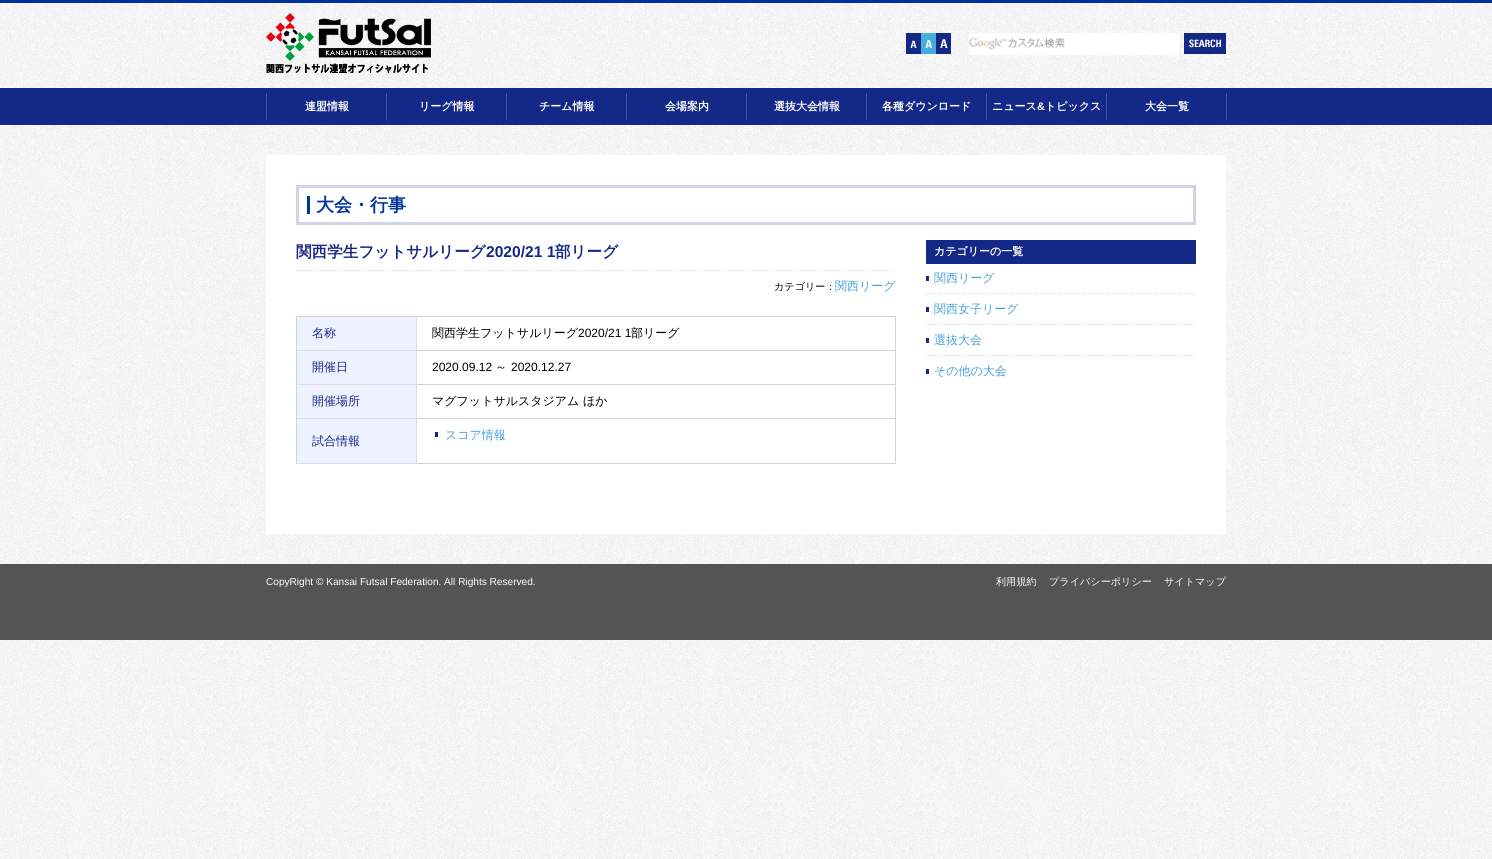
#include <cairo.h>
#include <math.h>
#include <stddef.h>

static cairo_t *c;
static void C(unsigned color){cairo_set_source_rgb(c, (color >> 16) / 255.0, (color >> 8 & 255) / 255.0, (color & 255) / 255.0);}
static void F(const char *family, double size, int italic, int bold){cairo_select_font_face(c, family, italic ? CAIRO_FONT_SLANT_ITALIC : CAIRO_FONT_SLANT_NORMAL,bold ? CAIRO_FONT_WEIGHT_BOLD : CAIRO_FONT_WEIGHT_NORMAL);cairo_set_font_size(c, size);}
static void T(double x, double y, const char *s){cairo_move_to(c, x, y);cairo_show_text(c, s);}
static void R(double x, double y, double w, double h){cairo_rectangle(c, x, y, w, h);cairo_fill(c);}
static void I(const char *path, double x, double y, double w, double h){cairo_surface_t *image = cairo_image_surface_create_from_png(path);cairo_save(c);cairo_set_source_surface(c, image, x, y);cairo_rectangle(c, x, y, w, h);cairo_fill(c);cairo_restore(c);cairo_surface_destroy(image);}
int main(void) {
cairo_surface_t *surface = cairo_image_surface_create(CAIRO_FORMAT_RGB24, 1492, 859);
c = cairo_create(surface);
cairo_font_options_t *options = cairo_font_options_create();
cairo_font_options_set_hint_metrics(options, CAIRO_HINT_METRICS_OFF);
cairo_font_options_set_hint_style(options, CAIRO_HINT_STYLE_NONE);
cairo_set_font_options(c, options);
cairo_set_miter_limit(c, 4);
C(0xffffff);
cairo_paint(c);
I("1.png",0,3,1492,856);
C(0x003399);
R(0,0,1492,3);
I("2.png",266,13,165,60);
I("3.png",906,33,15,21);
I("4.png",921,33,15,21);
I("5.png",936,33,15,21);
C(0xffffff);
R(969,33,210,22);
I("6.png",969,38,96,12);
I("7.png",1184,33,42,21);
C(0x142887);
R(0,88,1492,37);
C(0x4354a0);
R(1226,93,1,27);
R(266,93,1,27);
F("WenQuanYi Zen Hei",11,0,1);
C(0xffffff);
T(305,110,"連盟情報");
C(0x4354a0);
R(386,93,1,27);
C(0xffffff);
T(419,110,"リーグ情報");
C(0x4354a0);
R(506,93,1,27);
C(0xffffff);
T(539,110,"チーム情報");
C(0x4354a0);
R(626,93,1,27);
C(0xffffff);
T(665,110,"会場案内");
C(0x4354a0);
R(746,93,1,27);
C(0xffffff);
T(774,110,"選抜大会情報");
C(0x4354a0);
R(866,93,1,27);
C(0xffffff);
T(882,110,"各種ダウンロード");
C(0x4354a0);
R(986,93,1,27);
C(0xffffff);
T(992,110,"ニュース");
F("Liberation Sans",11,0,1);
T(1037,110,"&");
F("WenQuanYi Zen Hei",11,0,1);
T(1045,110,"トピックス");
C(0x4354a0);
R(1106,93,1,27);
C(0xffffff);
T(1145,110,"大会一覧");
R(266,155,960,379);
cairo_rectangle(c,297.5,186.5,897,37);
C(0xd0d4e7);
cairo_set_line_width(c,3);
cairo_stroke(c);
C(0x003399);
R(307,196,3,18);
F("WenQuanYi Zen Hei",18,0,1);
T(316,211,"大会・行事");
I("8.png",296,270,598,1);
F("WenQuanYi Zen Hei",15.6,0,1);
C(0x142887);
T(296,257,"関西学生フットサルリーグ");
F("Liberation Sans",15.6,0,1);
T(486,257,"2020/21 1");
F("WenQuanYi Zen Hei",15.6,0,1);
T(555,257,"部リーグ");
F("WenQuanYi Zen Hei Medium",10.1,0,0);
C(0x000000);
T(774,290,"カテゴリー：");
F("WenQuanYi Zen Hei Medium",12,0,0);
C(0x46a1db);
T(835,290,"関西リーグ");
C(0xd2d2d2);
R(296,316,600,1);
R(296,316,1,148);
C(0xeef1ff);
R(297,317,119,33);
C(0xdddddd);
R(416,317,1,147);
R(297,350,120,1);
C(0x142887);
T(312,337,"名称");
C(0xd2d2d2);
R(895,317,1,147);
R(417,350,479,1);
C(0x000000);
T(432,337,"関西学生フットサルリーグ");
F("Liberation Sans",12,0,0);
T(578,337,"2020/21 1");
F("WenQuanYi Zen Hei Medium",12,0,0);
T(631,337,"部リーグ");
C(0xeef1ff);
R(297,351,119,33);
C(0xdddddd);
R(297,384,120,1);
C(0x142887);
T(312,371,"開催日");
C(0xd2d2d2);
R(417,384,479,1);
F("Liberation Sans",12,0,0);
C(0x000000);
T(432,371,"2020.09.12");
F("WenQuanYi Zen Hei Medium",12,0,0);
T(495,371,"～");
F("Liberation Sans",12,0,0);
T(511,371,"2020.12.27");
C(0xeef1ff);
R(297,385,119,33);
C(0xdddddd);
R(297,418,120,1);
F("WenQuanYi Zen Hei Medium",12,0,0);
C(0x142887);
T(312,405,"開催場所");
C(0xd2d2d2);
R(417,418,479,1);
C(0x000000);
T(432,405,"マグフットサルスタジアム ほか");
C(0xeef1ff);
R(297,419,119,44);
C(0xdddddd);
R(297,463,120,1);
C(0x142887);
T(312,445,"試合情報");
C(0xd2d2d2);
R(417,463,479,1);
C(0x46a1db);
T(445,439,"スコア情報");
C(0x142888);
R(435,432,3,5);
C(0x142887);
R(926,240,270,24);
F("WenQuanYi Zen Hei",11,0,1);
C(0xffffff);
T(934,255,"カテゴリーの一覧");
I("9.png",926,293,268,1);
C(0x142888);
R(926,276,3,5);
F("WenQuanYi Zen Hei Medium",12,0,0);
C(0x46a1db);
T(934,282,"関西リーグ");
I("9.png",926,324,268,1);
C(0x142888);
R(926,307,3,5);
C(0x46a1db);
T(934,313,"関西女子リーグ");
I("9.png",926,355,268,1);
C(0x142888);
R(926,338,3,5);
C(0x46a1db);
T(934,344,"選抜大会");
C(0x142888);
R(926,369,3,5);
C(0x46a1db);
T(934,375,"その他の大会");
C(0x545454);
R(0,564,1492,76);
F("Liberation Sans",10.1,0,0);
C(0xffffff);
T(266,585,"CopyRight © Kansai Futsal Federation. All Rights Reserved.");
F("WenQuanYi Zen Hei Medium",10.1,0,0);
T(996,585,"利用規約");
T(1049,585,"プライバシーポリシー");
T(1164,585,"サイトマップ");
cairo_surface_write_to_png(surface, "o.png");
cairo_font_options_destroy(options);
cairo_destroy(c);
cairo_surface_destroy(surface);
return 0;
}
